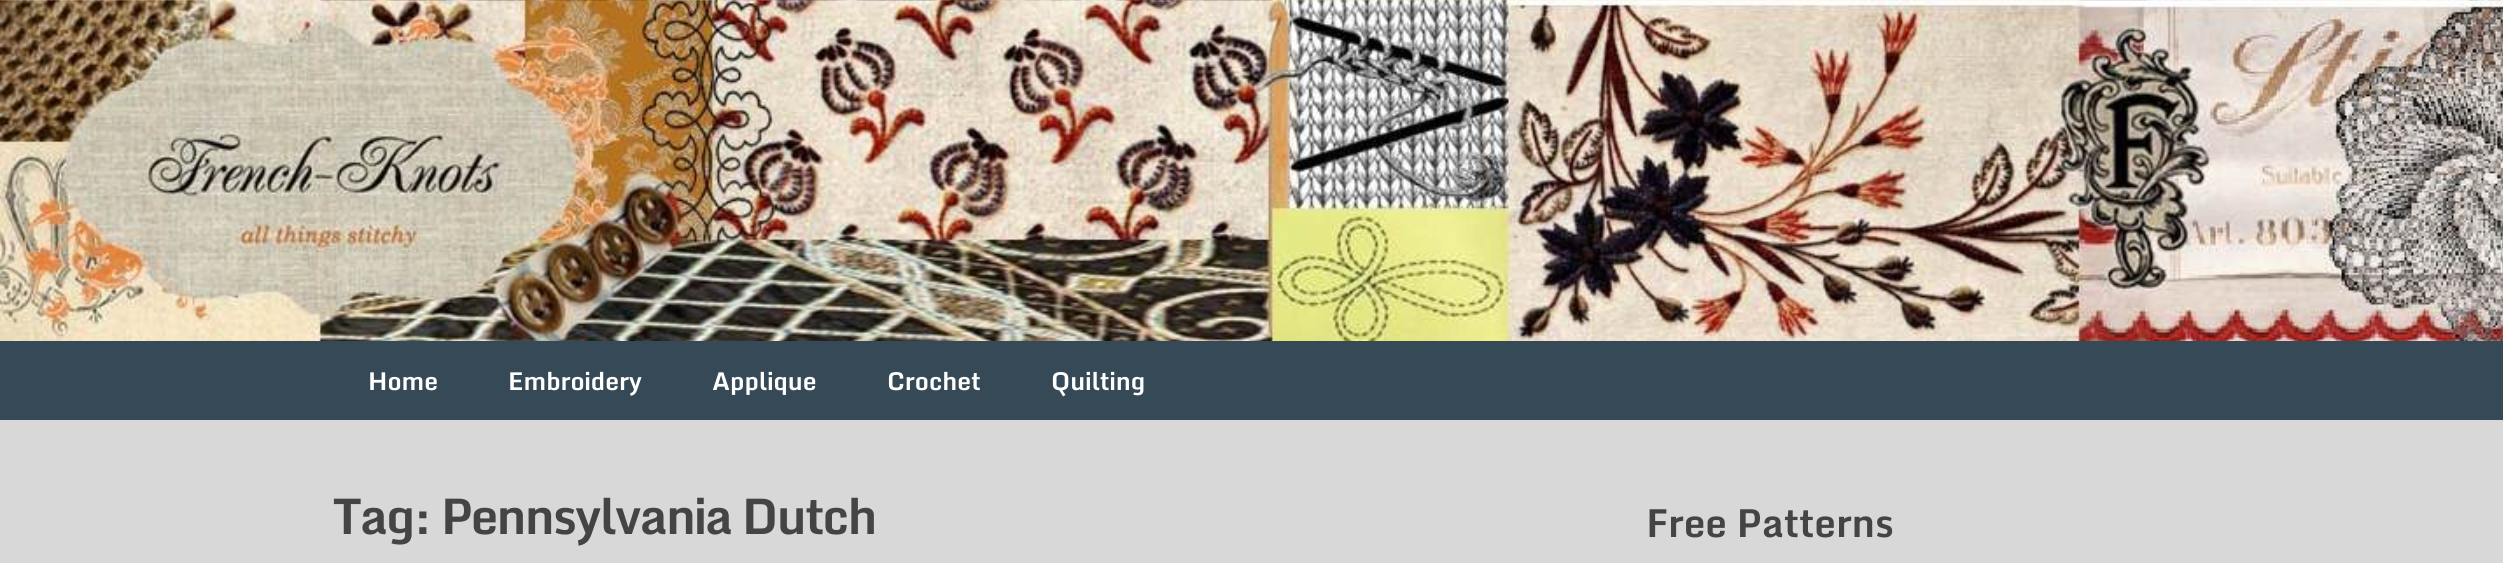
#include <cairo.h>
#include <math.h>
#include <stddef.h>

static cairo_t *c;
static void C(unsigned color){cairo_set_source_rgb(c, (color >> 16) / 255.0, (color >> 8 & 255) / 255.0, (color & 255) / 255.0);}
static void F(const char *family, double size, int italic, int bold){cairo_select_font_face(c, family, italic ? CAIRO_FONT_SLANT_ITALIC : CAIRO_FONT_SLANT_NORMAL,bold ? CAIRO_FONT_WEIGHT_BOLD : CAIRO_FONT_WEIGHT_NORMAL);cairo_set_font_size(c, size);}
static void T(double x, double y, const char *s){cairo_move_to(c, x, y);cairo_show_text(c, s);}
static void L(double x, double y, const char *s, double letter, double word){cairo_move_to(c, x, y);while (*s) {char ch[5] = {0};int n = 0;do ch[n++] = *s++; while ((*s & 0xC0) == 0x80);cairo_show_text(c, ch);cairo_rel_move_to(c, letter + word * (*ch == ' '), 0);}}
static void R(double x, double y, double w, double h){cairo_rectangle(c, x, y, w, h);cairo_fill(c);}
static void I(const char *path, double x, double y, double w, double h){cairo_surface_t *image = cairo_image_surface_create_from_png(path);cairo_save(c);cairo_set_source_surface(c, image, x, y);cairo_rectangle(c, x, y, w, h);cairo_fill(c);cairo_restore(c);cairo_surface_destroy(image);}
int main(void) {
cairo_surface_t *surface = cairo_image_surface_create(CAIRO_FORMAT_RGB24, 2503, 563);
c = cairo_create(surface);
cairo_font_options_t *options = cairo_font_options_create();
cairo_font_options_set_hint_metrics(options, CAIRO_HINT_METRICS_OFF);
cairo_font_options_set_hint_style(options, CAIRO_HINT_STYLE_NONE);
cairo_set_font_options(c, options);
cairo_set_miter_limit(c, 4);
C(0xd8d8d8);
cairo_paint(c);
I("1.png",0,0,2503,341);
C(0x364956);
R(0,341,2503,79);
F("Monda",24.5,0,1);
C(0xffffff);
T(368,390,"Home");
T(508,390,"Embroidery");
T(712,390,"Applique");
T(887,390,"Crochet");
T(1051,390,"Quilting");
F("Monda",49,0,1);
C(0x444444);
L(333,534,"Tag: Pennsylvania Dutch",-1.75,0);
F("Monda",38.5,0,1);
T(1646,537,"Free Patterns");
cairo_surface_write_to_png(surface, "o.png");
cairo_font_options_destroy(options);
cairo_destroy(c);
cairo_surface_destroy(surface);
return 0;
}
